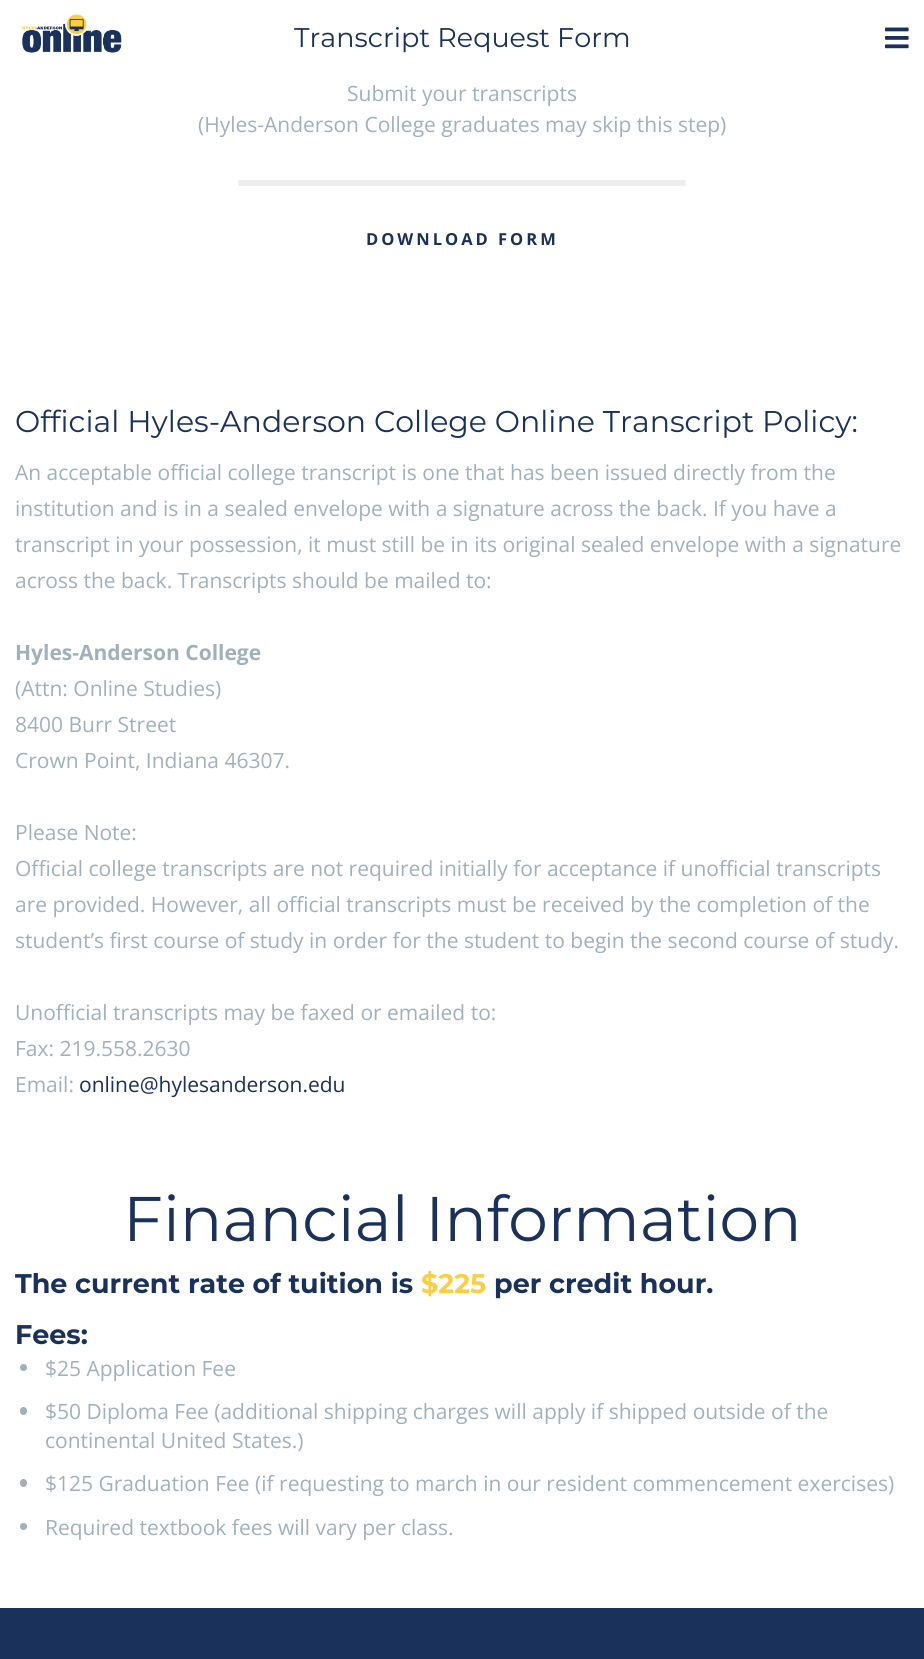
#include <cairo.h>
#include <math.h>
#include <stddef.h>

static cairo_t *c;
static void C(unsigned color){cairo_set_source_rgb(c, (color >> 16) / 255.0, (color >> 8 & 255) / 255.0, (color & 255) / 255.0);}
static void F(const char *family, double size, int italic, int bold){cairo_select_font_face(c, family, italic ? CAIRO_FONT_SLANT_ITALIC : CAIRO_FONT_SLANT_NORMAL,bold ? CAIRO_FONT_WEIGHT_BOLD : CAIRO_FONT_WEIGHT_NORMAL);cairo_set_font_size(c, size);}
static void T(double x, double y, const char *s){cairo_move_to(c, x, y);cairo_show_text(c, s);}
static void L(double x, double y, const char *s, double letter, double word){cairo_move_to(c, x, y);while (*s) {char ch[5] = {0};int n = 0;do ch[n++] = *s++; while ((*s & 0xC0) == 0x80);cairo_show_text(c, ch);cairo_rel_move_to(c, letter + word * (*ch == ' '), 0);}}
static void R(double x, double y, double w, double h){cairo_rectangle(c, x, y, w, h);cairo_fill(c);}
static void Q(double x, double y, double w, double h, double r){cairo_new_sub_path(c);cairo_arc(c, x + w - r, y + h - r, r, 0, M_PI / 2);cairo_arc(c, x + r, y + h - r, r, M_PI / 2, M_PI);cairo_arc(c, x + r, y + r, r, M_PI, 1.5 * M_PI);cairo_arc(c, x + w - r, y + r, r, 1.5 * M_PI, 2 * M_PI);cairo_close_path(c);}
static void I(const char *path, double x, double y, double w, double h){cairo_surface_t *image = cairo_image_surface_create_from_png(path);cairo_save(c);cairo_set_source_surface(c, image, x, y);cairo_rectangle(c, x, y, w, h);cairo_fill(c);cairo_restore(c);cairo_surface_destroy(image);}
int main(void) {
cairo_surface_t *surface = cairo_image_surface_create(CAIRO_FORMAT_RGB24, 924, 1659);
c = cairo_create(surface);
cairo_font_options_t *options = cairo_font_options_create();
cairo_font_options_set_hint_metrics(options, CAIRO_HINT_METRICS_OFF);
cairo_font_options_set_hint_style(options, CAIRO_HINT_STYLE_NONE);
cairo_set_font_options(c, options);
cairo_set_miter_limit(c, 4);
C(0xffffff);
cairo_paint(c);
I("1.png",22,14,100,39);
I("2.png",885,27,24,22);
F("Montserrat",27,0,0);
C(0x1a315c);
T(294,47,"Transcript Request Form");
F("Open Sans",21,0,0);
C(0xa1b1bc);
T(347,101,"Submit your transcripts");
T(198,132,"(Hyles-Anderson College graduates may skip this step)");
C(0xededed);
cairo_new_path(c);
cairo_move_to(c,238,180);
cairo_line_to(c,686,180);
cairo_line_to(c,684,184);
cairo_line_to(c,240,184);
cairo_close_path(c);
cairo_fill(c);
cairo_set_source_rgba(c,0,0,0,0.07);
cairo_new_path(c);
cairo_move_to(c,685.5,180);
cairo_line_to(c,685.5,186);
cairo_line_to(c,684,184.5);
cairo_close_path(c);
cairo_fill(c);
cairo_new_path(c);
cairo_move_to(c,686,186);
cairo_line_to(c,238,186);
cairo_line_to(c,240,184);
cairo_line_to(c,684,184);
cairo_close_path(c);
cairo_fill(c);
cairo_new_path(c);
cairo_move_to(c,238.5,186);
cairo_line_to(c,238.5,180);
cairo_line_to(c,240,184.5);
cairo_close_path(c);
cairo_fill(c);
F("Open Sans",16.5,0,1);
C(0x1a315c);
L(366,245,"DOWNLOAD FORM",3,0);
F("Montserrat",30,0,0);
T(15,432,"Official Hyles-Anderson College Online Transcript Policy:");
F("Open Sans",21,0,0);
C(0xa1b1bc);
T(15,480,"An acceptable official college transcript is one that has been issued directly from the");
T(15,516,"institution and is in a sealed envelope with a signature across the back. If you have a");
T(15,552,"transcript in your possession, it must still be in its original sealed envelope with a signature");
T(15,588,"across the back. Transcripts should be mailed to:");
F("Open Sans",21,0,1);
T(15,660,"Hyles-Anderson College");
F("Open Sans",21,0,0);
T(15,696,"(Attn: Online Studies)");
T(15,732,"8400 Burr Street");
T(15,768,"Crown Point, Indiana 46307.");
T(15,840,"Please Note:");
T(15,876,"Official college transcripts are not required initially for acceptance if unofficial transcripts");
T(15,912,"are provided. However, all official transcripts must be received by the completion of the");
T(15,948,"student’s first course of study in order for the student to begin the second course of study.");
T(15,1020,"Unofficial transcripts may be faxed or emailed to:");
T(15,1056,"Fax: 219.558.2630");
T(15,1092,"Email:");
C(0x1a315c);
T(79,1092,"online@hylesanderson.edu");
F("Montserrat",63,0,0);
T(123,1241,"Financial Information");
F("Montserrat",27,0,1);
T(15,1293,"The current rate of tuition is");
C(0xfcce43);
T(421,1293,"$225");
C(0x1a315c);
T(494,1293,"per credit hour.");
T(15,1344,"Fees:");
C(0xa1b1bc);
cairo_new_path(c);
cairo_arc(c,23.5,1367.5,3.5,0,2 * M_PI);
cairo_fill(c);
F("Open Sans",21,0,0);
T(45,1376,"$25 Application Fee");
Q(20,1407,7,8,3.5);
cairo_fill(c);
T(45,1419,"$50 Diploma Fee (additional shipping charges will apply if shipped outside of the");
T(45,1448,"continental United States.)");
Q(20,1479,7,8,3.5);
cairo_fill(c);
T(45,1491,"$125 Graduation Fee (if requesting to march in our resident commencement exercises)");
cairo_new_path(c);
cairo_arc(c,23.5,1526.5,3.5,0,2 * M_PI);
cairo_fill(c);
T(45,1535,"Required textbook fees will vary per class.");
C(0x1a315c);
R(0,1608,924,51);
cairo_surface_write_to_png(surface, "o.png");
cairo_font_options_destroy(options);
cairo_destroy(c);
cairo_surface_destroy(surface);
return 0;
}
